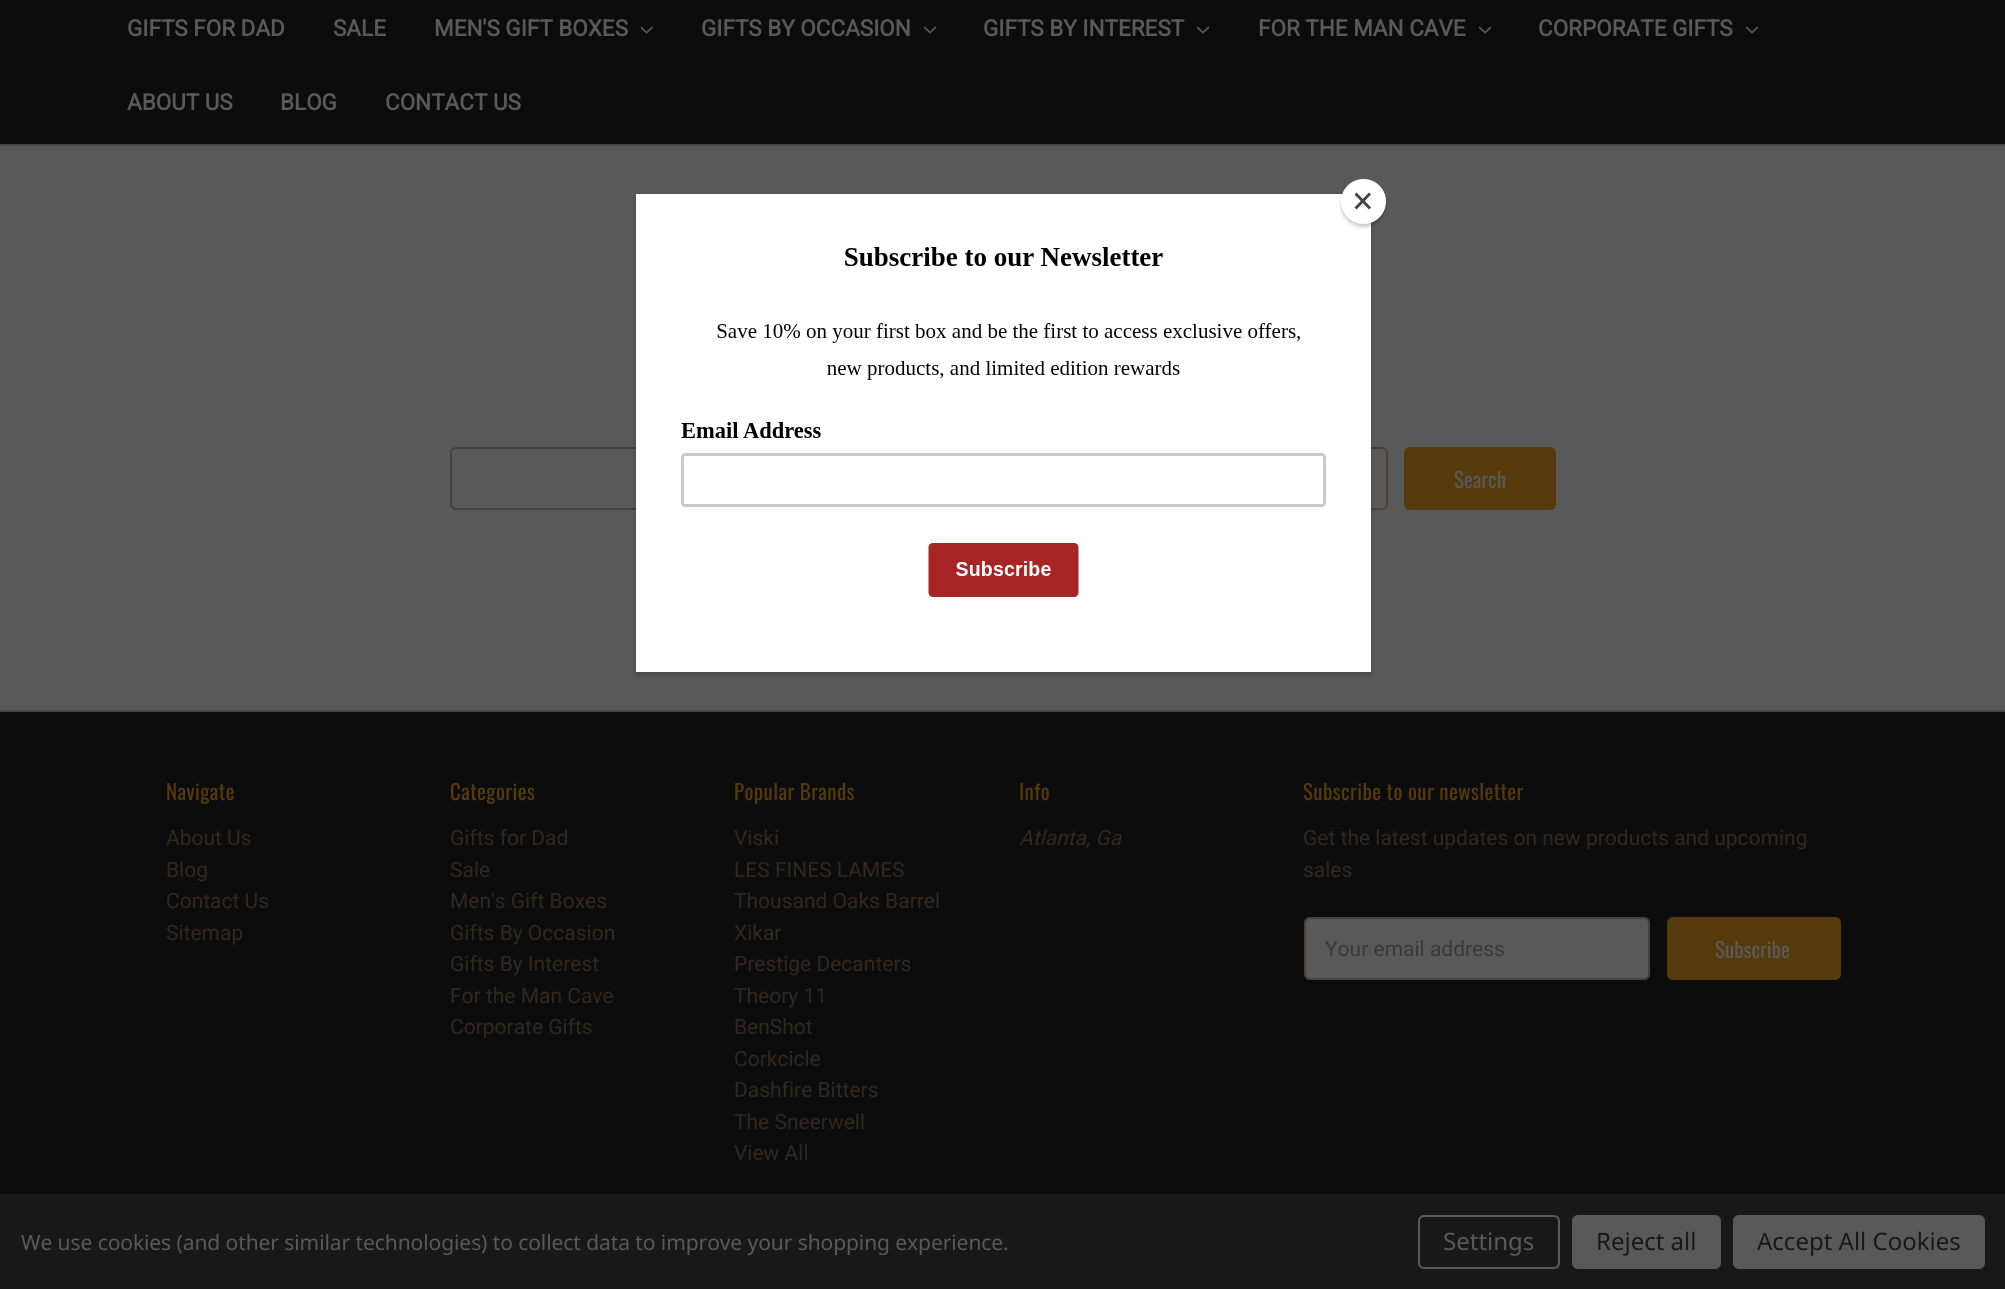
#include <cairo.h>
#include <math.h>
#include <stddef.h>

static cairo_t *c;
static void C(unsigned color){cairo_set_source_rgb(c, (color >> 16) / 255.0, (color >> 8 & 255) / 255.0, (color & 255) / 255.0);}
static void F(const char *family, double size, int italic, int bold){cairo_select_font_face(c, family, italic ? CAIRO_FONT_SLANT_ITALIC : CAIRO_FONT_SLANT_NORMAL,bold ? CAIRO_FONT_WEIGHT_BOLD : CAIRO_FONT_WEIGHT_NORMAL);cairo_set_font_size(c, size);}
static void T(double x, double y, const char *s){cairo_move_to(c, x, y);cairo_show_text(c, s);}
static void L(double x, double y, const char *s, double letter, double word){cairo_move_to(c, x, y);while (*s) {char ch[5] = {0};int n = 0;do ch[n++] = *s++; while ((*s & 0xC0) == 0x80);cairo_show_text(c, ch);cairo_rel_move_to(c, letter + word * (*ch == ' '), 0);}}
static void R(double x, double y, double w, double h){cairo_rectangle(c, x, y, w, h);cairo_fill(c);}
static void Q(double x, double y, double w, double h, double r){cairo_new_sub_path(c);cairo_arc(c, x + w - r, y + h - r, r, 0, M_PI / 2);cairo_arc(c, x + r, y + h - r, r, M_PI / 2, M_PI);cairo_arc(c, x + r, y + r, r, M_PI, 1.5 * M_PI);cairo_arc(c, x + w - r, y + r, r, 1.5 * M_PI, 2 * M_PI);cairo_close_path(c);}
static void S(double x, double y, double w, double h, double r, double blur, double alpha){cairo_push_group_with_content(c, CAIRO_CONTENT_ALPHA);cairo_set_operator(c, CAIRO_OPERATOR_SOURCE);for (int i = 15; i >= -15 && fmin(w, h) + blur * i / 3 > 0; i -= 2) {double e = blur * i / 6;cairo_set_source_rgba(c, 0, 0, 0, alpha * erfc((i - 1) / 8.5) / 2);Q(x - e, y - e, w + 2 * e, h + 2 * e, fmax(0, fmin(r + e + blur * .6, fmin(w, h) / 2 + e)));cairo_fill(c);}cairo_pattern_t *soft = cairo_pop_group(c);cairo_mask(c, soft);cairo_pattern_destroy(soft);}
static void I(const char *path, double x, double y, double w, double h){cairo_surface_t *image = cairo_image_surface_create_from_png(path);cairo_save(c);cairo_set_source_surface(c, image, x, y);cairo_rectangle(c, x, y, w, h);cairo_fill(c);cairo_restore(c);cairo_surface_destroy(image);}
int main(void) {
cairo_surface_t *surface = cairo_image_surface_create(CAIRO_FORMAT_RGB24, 2005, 1289);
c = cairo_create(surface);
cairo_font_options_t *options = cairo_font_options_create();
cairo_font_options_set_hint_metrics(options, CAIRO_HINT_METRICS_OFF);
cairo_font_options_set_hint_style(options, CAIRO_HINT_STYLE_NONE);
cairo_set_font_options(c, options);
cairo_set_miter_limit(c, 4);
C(0x595959);
cairo_paint(c);
C(0x0c0c0c);
R(0,0,2005,144);
C(0x47423d);
R(0,144,2005,2);
F("Roboto",22.5,0,1);
C(0x595959);
T(127,36,"GIFTS FOR DAD");
T(333,36,"SALE");
T(434,36,"MEN'S GIFT BOXES");
I("1.png",641,26,12,8);
T(701,36,"GIFTS BY OCCASION");
I("2.png",924,26,12,8);
T(983,36,"GIFTS BY INTEREST");
I("2.png",1197,26,12,8);
T(1258,36,"FOR THE MAN CAVE");
I("2.png",1479,26,12,8);
T(1538,36,"CORPORATE GIFTS");
I("2.png",1746,26,12,8);
T(127,110,"ABOUT US");
T(280,110,"BLOG");
T(385,110,"CONTACT US");
Q(451,448,936,61,5);
C(0x47423d);
cairo_stroke(c);
C(0x000000);
S(636,197,735,478,0,3,.2);
I("3.png",636,194,735,478);
S(1341,182,45,45,22.5,1.5,.2);
C(0xffffff);
cairo_arc(c,1363.5,201.5,22.5,0,2 * M_PI);
cairo_fill(c);
C(0x414141);
cairo_new_path(c);
cairo_move_to(c,1369,192.5);
cairo_line_to(c,1371,194.5);
cairo_line_to(c,1356.5,209.5);
cairo_line_to(c,1354.5,207.5);
cairo_close_path(c);
cairo_fill(c);
cairo_new_path(c);
cairo_move_to(c,1354.5,194.5);
cairo_line_to(c,1356.5,192.5);
cairo_line_to(c,1371,207.5);
cairo_line_to(c,1369,209.5);
cairo_close_path(c);
cairo_fill(c);
C(0x563a0c);
Q(1405,448,150,61,5);
cairo_fill_preserve(c);
cairo_stroke(c);
F("Oswald",21,0,0);
C(0x595959);
T(1454,488,"Search");
C(0x0c0c0c);
R(0,712,2005,482);
C(0x47423d);
R(0,710,2005,2);
C(0x563a0c);
L(166,800,"Navigate",.4,0);
F("Roboto",21,0,0);
C(0x33271d);
T(166,845,"About Us");
T(166,877,"Blog");
T(166,908,"Contact Us");
T(166,940,"Sitemap");
F("Oswald",21,0,0);
C(0x563a0c);
L(450,800,"Categories",.4,0);
F("Roboto",21,0,0);
C(0x33271d);
T(450,845,"Gifts for Dad");
T(450,877,"Sale");
T(450,908,"Men's Gift Boxes");
T(450,940,"Gifts By Occasion");
T(450,971,"Gifts By Interest");
T(450,1003,"For the Man Cave");
T(450,1034,"Corporate Gifts");
F("Oswald",21,0,0);
C(0x563a0c);
L(734,800,"Popular Brands",.4,0);
F("Roboto",21,0,0);
C(0x33271d);
T(734,845,"Viski");
T(734,877,"LES FINES LAMES");
T(734,908,"Thousand Oaks Barrel");
T(734,940,"Xikar");
T(734,971,"Prestige Decanters");
T(734,1003,"Theory 11");
T(734,1034,"BenShot");
T(734,1066,"Corkcicle");
T(734,1097,"Dashfire Bitters");
T(734,1129,"The Sneerwell");
T(734,1160,"View All");
F("Oswald",21,0,0);
C(0x563a0c);
L(1019,800,"Info",.4,0);
F("Roboto",21,1,0);
C(0x33271d);
T(1019,845,"Atlanta, Ga");
F("Oswald",21,0,0);
C(0x563a0c);
L(1303,800,"Subscribe to our newsletter",.4,0);
F("Roboto",21,0,0);
C(0x33271d);
T(1303,845,"Get the latest updates on new products and upcoming");
T(1303,877,"sales");
C(0x595959);
Q(1305,918,344,61,5);
cairo_fill_preserve(c);
C(0x47423d);
cairo_stroke(c);
C(0x3a3a3a);
T(1325,956,"Your email address");
C(0x563a0c);
Q(1668,918,172,61,5);
cairo_fill_preserve(c);
cairo_stroke(c);
F("Oswald",21,0,0);
C(0x595959);
T(1715,958,"Subscribe");
C(0x181818);
R(0,1194,2005,95);
F("Noto Sans",21,0,0);
C(0x595959);
L(21,1250,"We use cookies (and other similar technologies) to collect data to improve your shopping experience.",-.08,0);
Q(1419,1216,140,52,5);
cairo_stroke(c);
F("Noto Sans",24,0,0);
T(1443,1250,"Settings");
Q(1572,1215,149,54,6);
cairo_fill(c);
C(0x181818);
T(1596,1250,"Reject all");
C(0x595959);
Q(1733,1215,252,54,6);
cairo_fill(c);
C(0x181818);
T(1757,1250,"Accept All Cookies");
cairo_surface_write_to_png(surface, "o.png");
cairo_font_options_destroy(options);
cairo_destroy(c);
cairo_surface_destroy(surface);
return 0;
}
